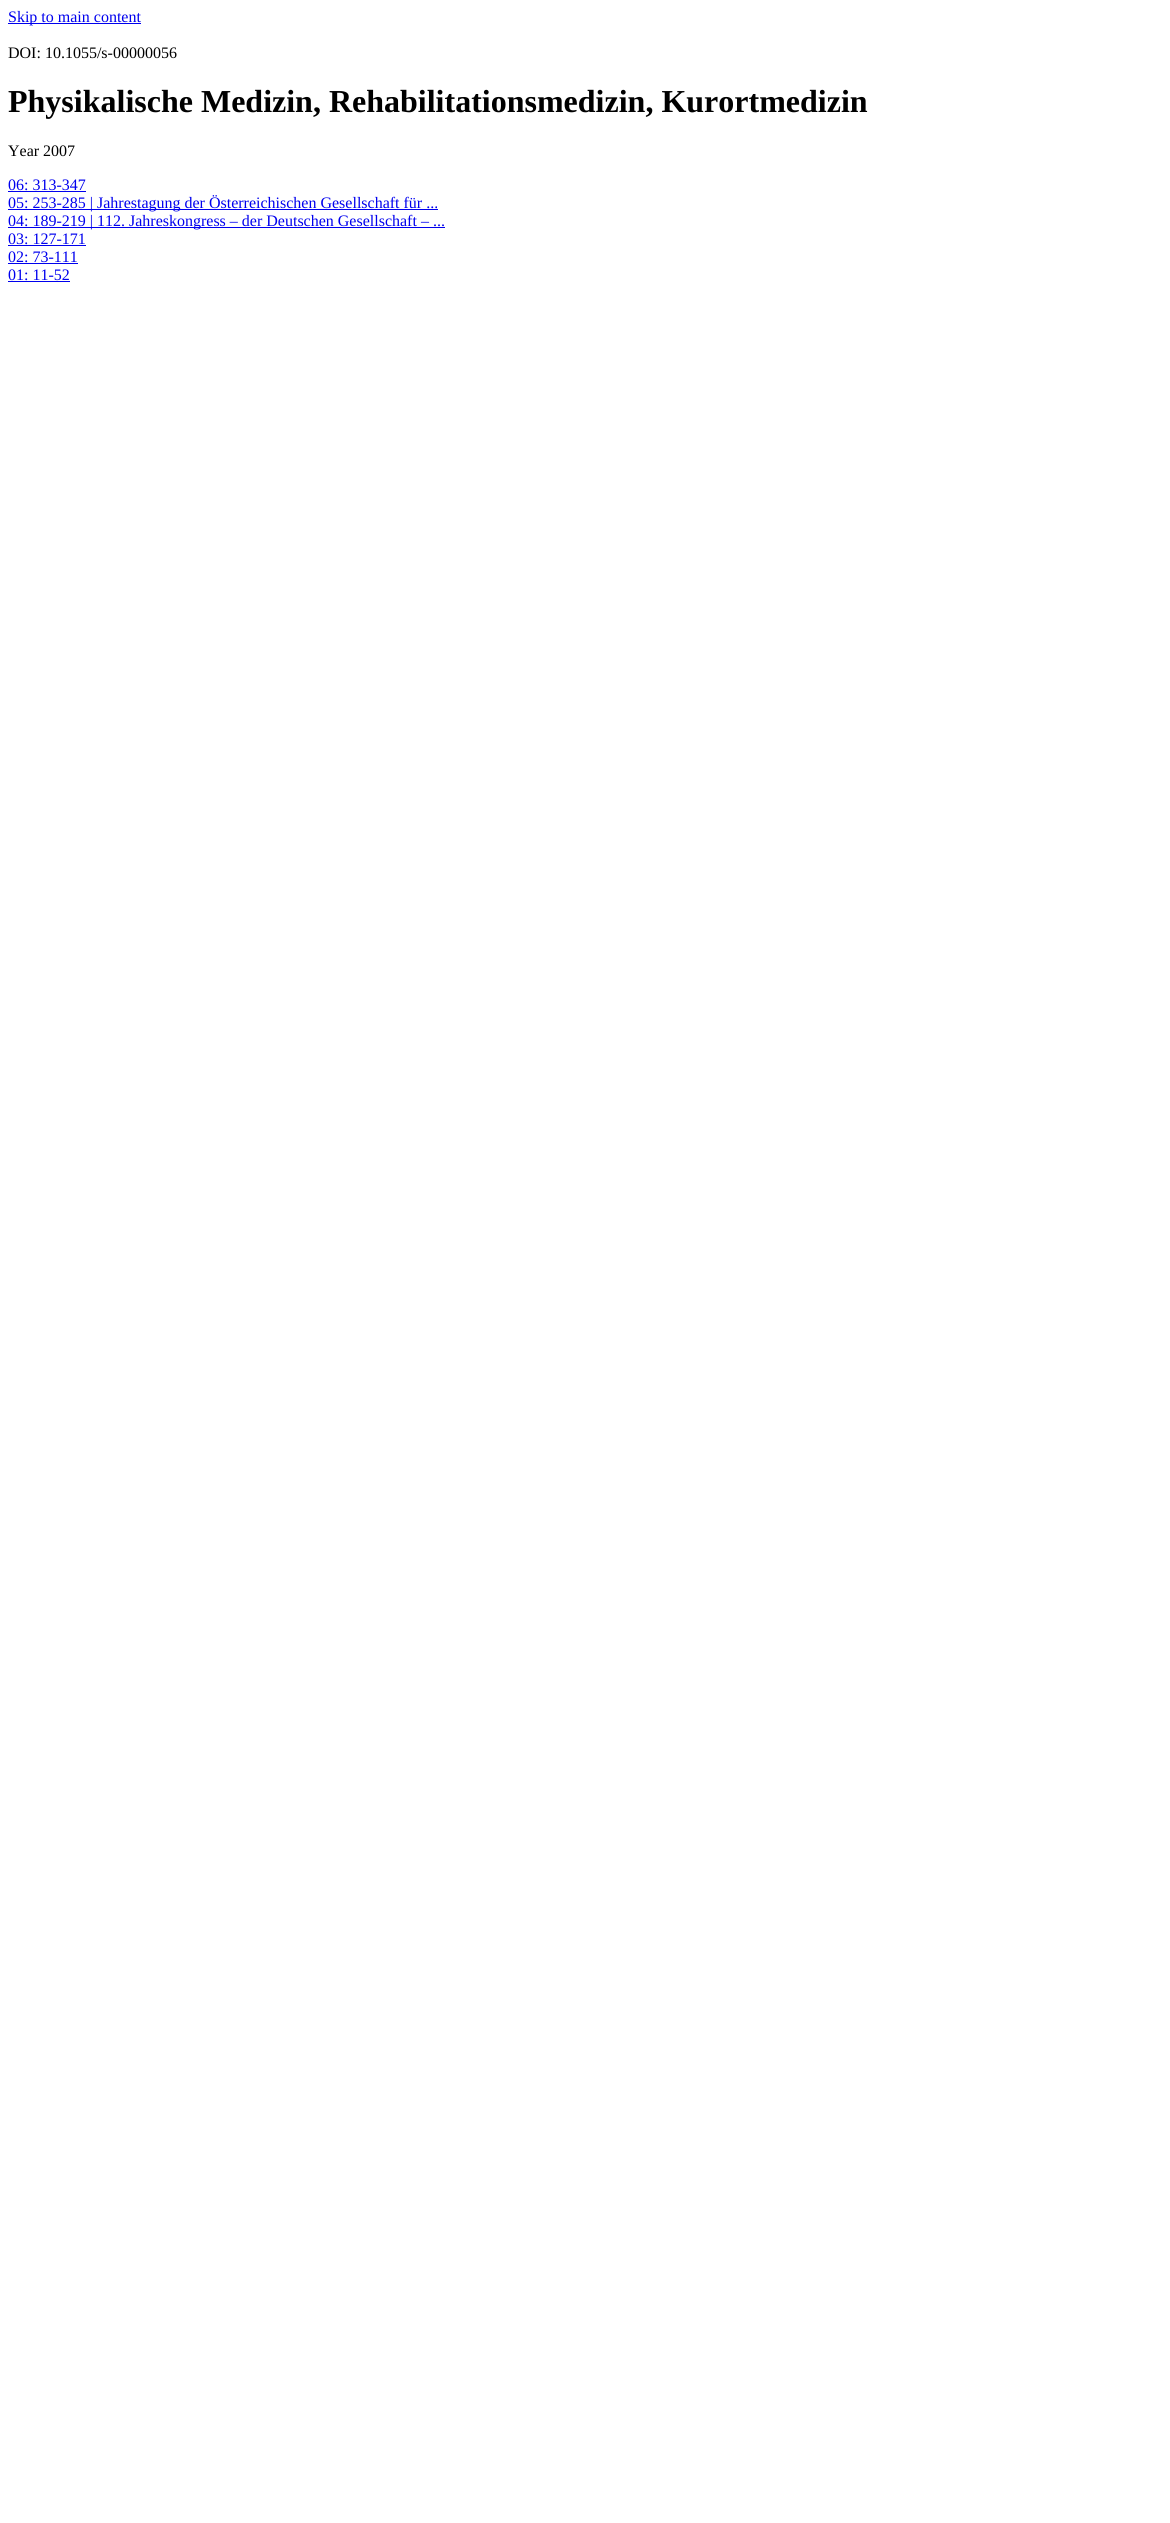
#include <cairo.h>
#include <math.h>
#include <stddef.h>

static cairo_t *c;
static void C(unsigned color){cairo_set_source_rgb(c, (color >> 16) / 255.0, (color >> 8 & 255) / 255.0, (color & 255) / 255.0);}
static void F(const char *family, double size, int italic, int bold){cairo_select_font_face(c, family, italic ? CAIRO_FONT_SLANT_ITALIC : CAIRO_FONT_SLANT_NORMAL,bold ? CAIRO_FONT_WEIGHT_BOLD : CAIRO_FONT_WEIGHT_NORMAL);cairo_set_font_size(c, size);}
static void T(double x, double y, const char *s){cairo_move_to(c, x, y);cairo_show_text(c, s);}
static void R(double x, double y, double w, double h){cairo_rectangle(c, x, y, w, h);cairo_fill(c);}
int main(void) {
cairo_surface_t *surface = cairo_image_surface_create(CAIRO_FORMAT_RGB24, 1170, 2523);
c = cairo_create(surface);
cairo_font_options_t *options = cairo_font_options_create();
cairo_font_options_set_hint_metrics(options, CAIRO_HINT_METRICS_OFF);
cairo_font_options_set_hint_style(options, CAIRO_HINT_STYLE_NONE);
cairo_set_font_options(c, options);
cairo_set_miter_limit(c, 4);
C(0xffffff);
cairo_paint(c);
C(0x0000ee);
R(8,23,133,1);
F("Liberation Serif",16,0,0);
T(8,22,"Skip to main content");
C(0x000000);
T(8,58,"DOI: 10.1055/s-00000056");
F("Liberation Serif",32,0,1);
T(8,112,"Physikalische Medizin, Rehabilitationsmedizin, Kurortmedizin");
F("Liberation Serif",16,0,0);
T(8,156,"Year 2007");
C(0x0000ee);
T(8,190,"06: 313-347");
R(8,191,78,1);
R(8,209,430,1);
T(8,208,"05: 253-285 | Jahrestagung der Österreichischen Gesellschaft für ...");
R(8,227,437,1);
T(8,226,"04: 189-219 | 112. Jahreskongress – der Deutschen Gesellschaft – ...");
T(8,244,"03: 127-171");
R(8,245,78,1);
T(8,262,"02: 73-111");
R(8,263,70,1);
T(8,280,"01: 11-52");
R(8,281,62,1);
cairo_surface_write_to_png(surface, "o.png");
cairo_font_options_destroy(options);
cairo_destroy(c);
cairo_surface_destroy(surface);
return 0;
}
